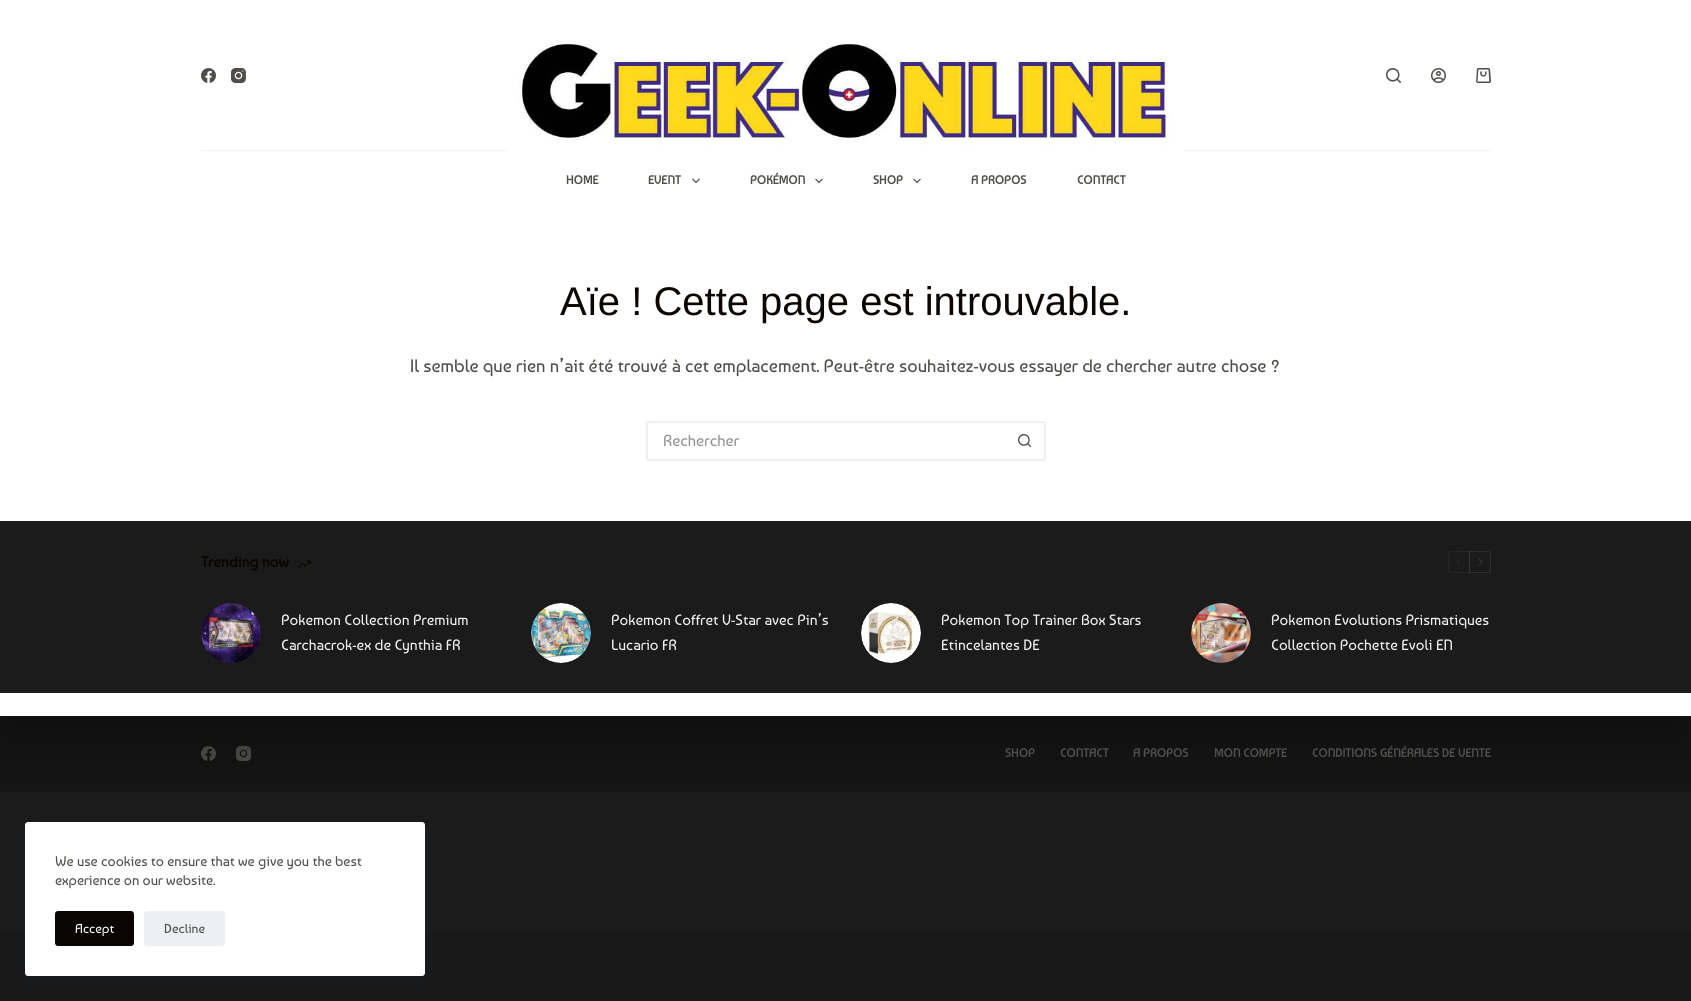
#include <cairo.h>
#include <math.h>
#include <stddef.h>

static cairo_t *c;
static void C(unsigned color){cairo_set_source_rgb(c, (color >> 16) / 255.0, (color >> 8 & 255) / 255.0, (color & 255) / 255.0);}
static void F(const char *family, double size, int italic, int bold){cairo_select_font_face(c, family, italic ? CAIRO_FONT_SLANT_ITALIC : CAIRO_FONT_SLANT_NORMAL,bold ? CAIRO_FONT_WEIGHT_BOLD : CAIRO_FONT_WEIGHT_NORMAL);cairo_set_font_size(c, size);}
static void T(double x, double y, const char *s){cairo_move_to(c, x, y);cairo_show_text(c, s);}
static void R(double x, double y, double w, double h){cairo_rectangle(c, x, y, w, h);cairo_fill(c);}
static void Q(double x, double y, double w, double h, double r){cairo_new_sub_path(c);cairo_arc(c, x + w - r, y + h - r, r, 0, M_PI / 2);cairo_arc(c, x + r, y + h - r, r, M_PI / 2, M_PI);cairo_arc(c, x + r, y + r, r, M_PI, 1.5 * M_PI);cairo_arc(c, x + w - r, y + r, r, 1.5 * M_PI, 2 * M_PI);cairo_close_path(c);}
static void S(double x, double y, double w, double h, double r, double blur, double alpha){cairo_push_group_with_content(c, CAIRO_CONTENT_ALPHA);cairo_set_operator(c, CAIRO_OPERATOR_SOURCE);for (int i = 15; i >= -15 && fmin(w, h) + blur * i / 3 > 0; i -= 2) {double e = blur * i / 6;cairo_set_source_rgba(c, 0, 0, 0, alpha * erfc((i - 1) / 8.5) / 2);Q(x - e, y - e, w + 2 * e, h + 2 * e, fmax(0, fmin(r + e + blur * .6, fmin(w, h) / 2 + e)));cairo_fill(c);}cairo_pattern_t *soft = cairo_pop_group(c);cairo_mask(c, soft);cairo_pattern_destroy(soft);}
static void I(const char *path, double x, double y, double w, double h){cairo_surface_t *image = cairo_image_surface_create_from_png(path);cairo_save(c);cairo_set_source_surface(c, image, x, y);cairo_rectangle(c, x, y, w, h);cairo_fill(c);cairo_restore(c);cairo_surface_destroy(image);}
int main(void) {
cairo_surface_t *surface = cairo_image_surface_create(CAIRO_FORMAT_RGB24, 1691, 1001);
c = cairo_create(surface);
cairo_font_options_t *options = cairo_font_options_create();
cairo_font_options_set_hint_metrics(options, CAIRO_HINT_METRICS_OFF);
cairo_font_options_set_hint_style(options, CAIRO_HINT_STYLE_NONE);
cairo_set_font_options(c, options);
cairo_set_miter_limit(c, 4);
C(0xffffff);
cairo_paint(c);
I("1.png",201,68,15,15);
I("2.png",231,68,15,15);
C(0xf2f1f1);
R(201,150,1290,1);
I("3.png",507,43,677,108);
I("4.png",1386,68,15,15);
I("5.png",1431,68,15,15);
I("6.png",1476,68,15,15);
C(0x1b1b1b);
R(0,792,1691,140);
C(0x151515);
R(0,716,1691,76);
I("16.png",201,746,15,15);
I("17.png",236,746,15,15);
cairo_save(c);
cairo_rectangle(c,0,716,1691,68);
cairo_clip(c);
C(0x000000);
S(0,241,1691,505,0,25,.3);
cairo_restore(c);
C(0xffffff);
R(0,195,1691,16);
F("Baumans",12,0,1);
C(0x504e4a);
T(566,184,"HOME");
T(648,184,"EVENT");
I("7.png",692,178,8,6);
T(750,184,"POKÉMON");
I("7.png",815,178,8,6);
T(873,184,"SHOP");
I("7.png",913,178,8,6);
T(971,184,"A PROPOS");
T(1077,184,"CONTACT");
F("Liberation Sans",40,0,0);
C(0x0a0500);
T(560,315,"Aïe ! Cette page est introuvable.");
F("Baumans",18,0,0);
C(0x504e4a);
T(410,372,"Il semble que rien n’ait été trouvé à cet emplacement. Peut-être souhaitez-vous essayer de chercher autre chose ?");
C(0xedeff2);
cairo_set_fill_rule(c,CAIRO_FILL_RULE_EVEN_ODD);
cairo_new_path(c);
cairo_move_to(c,649,421);
cairo_line_to(c,1006,421);
cairo_line_to(c,1006,461);
cairo_line_to(c,649,461);
cairo_curve_to(c,647,461,646,460,646,458);
cairo_line_to(c,646,424);
cairo_curve_to(c,646,422,647,421,649,421);
cairo_close_path(c);
cairo_move_to(c,649,423);
cairo_line_to(c,1006,423);
cairo_line_to(c,1006,459);
cairo_line_to(c,649,459);
cairo_line_to(c,648,458);
cairo_line_to(c,648,424);
cairo_close_path(c);
cairo_fill(c);
F("Baumans",16,0,0);
C(0x969592);
T(663,446,"Rechercher");
C(0xedeff2);
cairo_new_path(c);
cairo_move_to(c,1006,421);
cairo_line_to(c,1043,421);
cairo_curve_to(c,1045,421,1046,422,1046,424);
cairo_line_to(c,1046,458);
cairo_curve_to(c,1046,460,1045,461,1043,461);
cairo_line_to(c,1006,461);
cairo_close_path(c);
cairo_move_to(c,1006,423);
cairo_line_to(c,1043,423);
cairo_curve_to(c,1044,423,1044,423,1044,424);
cairo_line_to(c,1044,458);
cairo_curve_to(c,1044,459,1044,459,1043,459);
cairo_line_to(c,1006,459);
cairo_close_path(c);
cairo_fill(c);
I("8.png",1018,434,13,13);
C(0x1b1b1b);
R(0,521,1691,172);
F("Baumans",15,0,1);
C(0x0a0500);
T(201,567,"Trending now");
I("9.png",298,560,13,8);
cairo_new_path(c);
cairo_move_to(c,1451,551.5);
cairo_line_to(c,1469.5,551.5);
cairo_line_to(c,1469.5,572.5);
cairo_line_to(c,1451,572.5);
cairo_curve_to(c,1449.5,572.5,1448.5,571.5,1448.5,570);
cairo_line_to(c,1448.5,554);
cairo_curve_to(c,1448.5,552.5,1449.5,551.5,1451,551.5);
cairo_close_path(c);
C(0x262524);
cairo_set_line_width(c,1);
cairo_stroke(c);
I("10.png",1456,558,4,8);
cairo_new_path(c);
cairo_move_to(c,1469.5,551.5);
cairo_line_to(c,1488,551.5);
cairo_curve_to(c,1489.5,551.5,1490.5,552.5,1490.5,554);
cairo_line_to(c,1490.5,570);
cairo_curve_to(c,1490.5,571.5,1489.5,572.5,1488,572.5);
cairo_line_to(c,1469.5,572.5);
cairo_close_path(c);
cairo_set_source_rgba(c,0.314,0.306,0.29,0.4);
cairo_stroke(c);
I("11.png",1478,558,5,8);
I("12.png",201,603,60,60);
F("Baumans",15,0,0);
C(0xedeff2);
T(281,625,"Pokemon Collection Premium");
T(281,650,"Carchacrok-ex de Cynthia FR");
I("13.png",531,603,60,60);
T(611,625,"Pokemon Coffret V-Star avec Pin’s");
T(611,650,"Lucario FR");
I("14.png",861,603,60,60);
T(941,625,"Pokemon Top Trainer Box Stars");
T(941,650,"Etincelantes DE");
I("15.png",1191,603,60,60);
T(1271,625,"Pokemon Evolutions Prismatiques");
T(1271,650,"Collection Pochette Evoli EN");
F("Baumans",12,0,1);
C(0x504e4a);
T(1005,757,"SHOP");
T(1060,757,"CONTACT");
T(1133,757,"A PROPOS");
T(1214,757,"MON COMPTE");
T(1312,757,"CONDITIONS GÉNÉRALES DE VENTE");
C(0x181818);
R(0,932,1691,69);
C(0x223865);
S(30,832,390,144,0,15,.15);
C(0xffffff);
Q(25,822,400,154,3);
cairo_fill(c);
F("Baumans",14,0,0);
C(0x504e4a);
T(55,866,"We use cookies to ensure that we give you the best");
T(55,885,"experience on our website.");
C(0x0a0500);
Q(55,911,79,35,3);
cairo_fill(c);
F("Baumans",13,0,0);
C(0xffffff);
T(75,933,"Accept");
C(0xeceff3);
Q(144,911,81,35,3);
cairo_fill(c);
C(0x504e4a);
T(164,933,"Decline");
cairo_surface_write_to_png(surface, "o.png");
cairo_font_options_destroy(options);
cairo_destroy(c);
cairo_surface_destroy(surface);
return 0;
}
